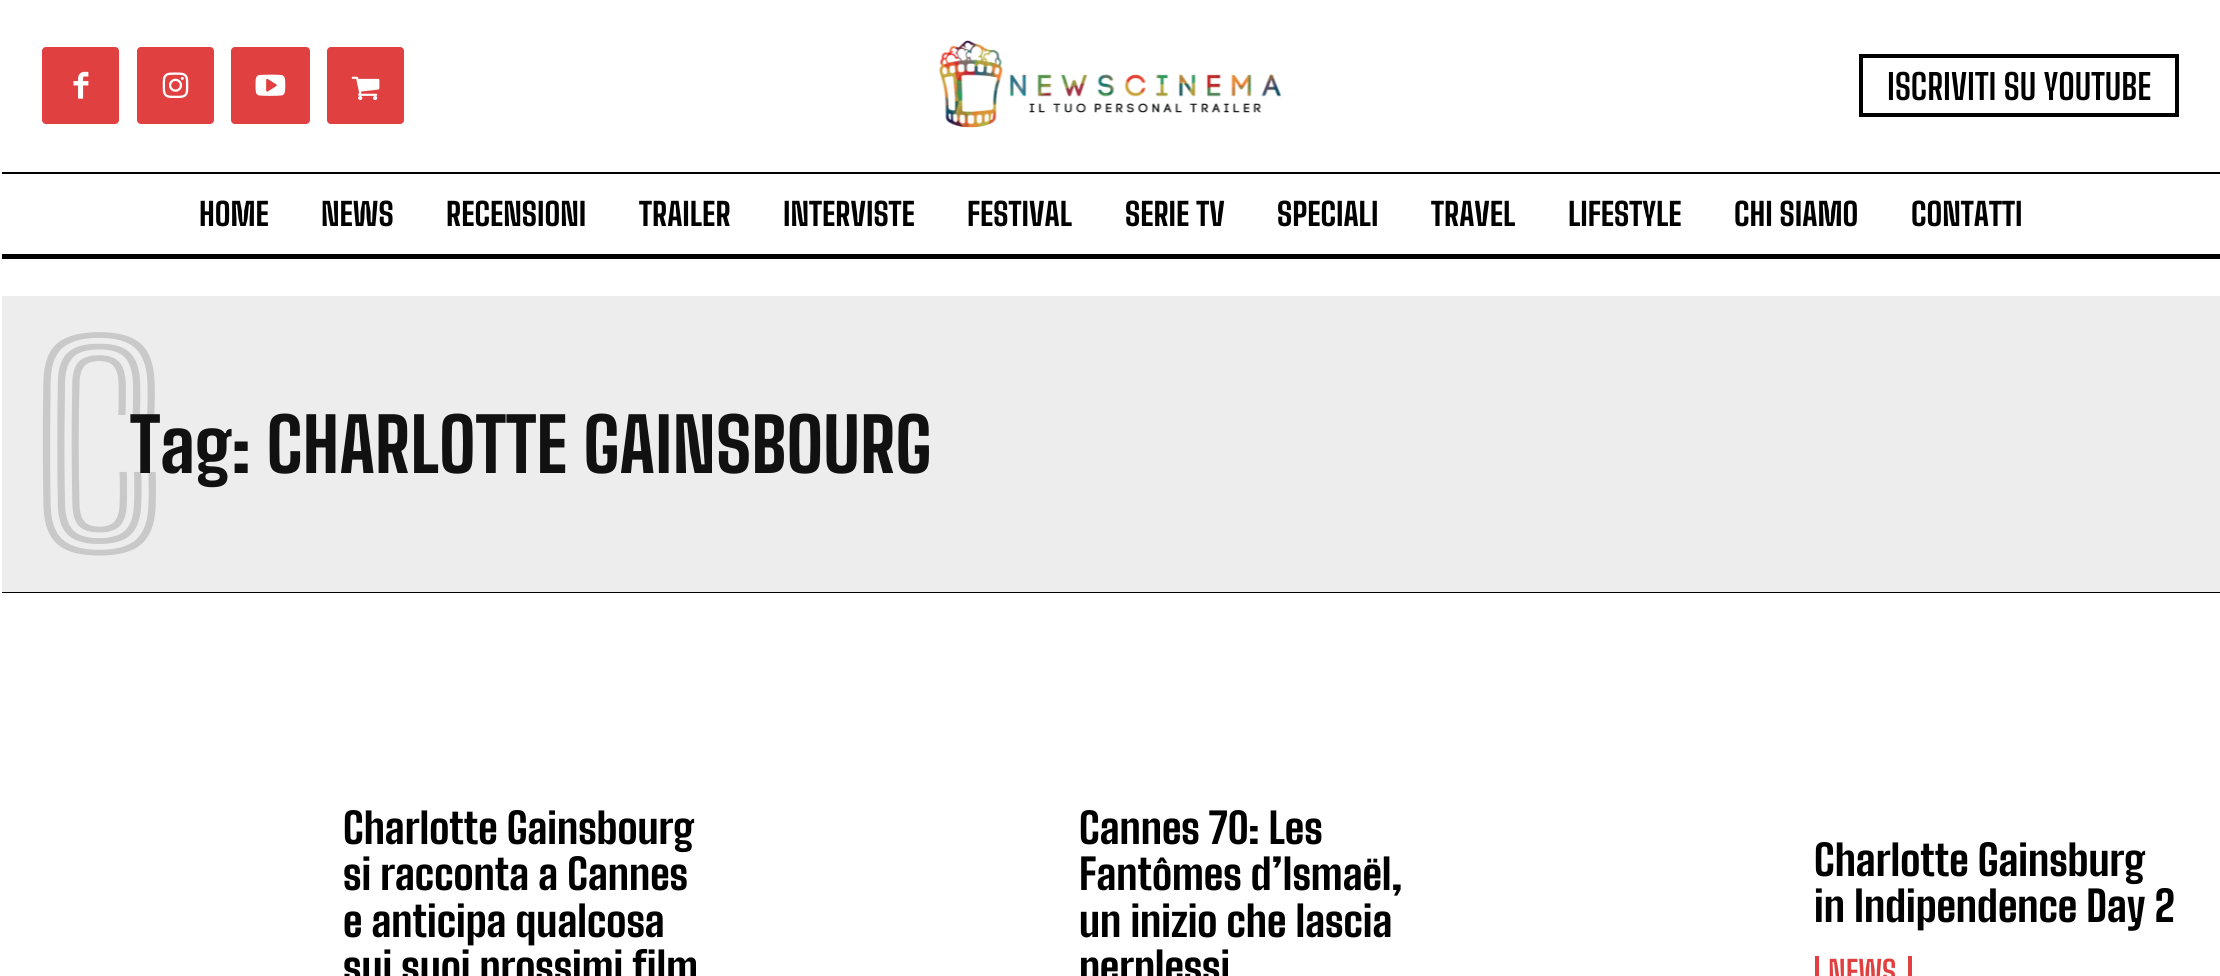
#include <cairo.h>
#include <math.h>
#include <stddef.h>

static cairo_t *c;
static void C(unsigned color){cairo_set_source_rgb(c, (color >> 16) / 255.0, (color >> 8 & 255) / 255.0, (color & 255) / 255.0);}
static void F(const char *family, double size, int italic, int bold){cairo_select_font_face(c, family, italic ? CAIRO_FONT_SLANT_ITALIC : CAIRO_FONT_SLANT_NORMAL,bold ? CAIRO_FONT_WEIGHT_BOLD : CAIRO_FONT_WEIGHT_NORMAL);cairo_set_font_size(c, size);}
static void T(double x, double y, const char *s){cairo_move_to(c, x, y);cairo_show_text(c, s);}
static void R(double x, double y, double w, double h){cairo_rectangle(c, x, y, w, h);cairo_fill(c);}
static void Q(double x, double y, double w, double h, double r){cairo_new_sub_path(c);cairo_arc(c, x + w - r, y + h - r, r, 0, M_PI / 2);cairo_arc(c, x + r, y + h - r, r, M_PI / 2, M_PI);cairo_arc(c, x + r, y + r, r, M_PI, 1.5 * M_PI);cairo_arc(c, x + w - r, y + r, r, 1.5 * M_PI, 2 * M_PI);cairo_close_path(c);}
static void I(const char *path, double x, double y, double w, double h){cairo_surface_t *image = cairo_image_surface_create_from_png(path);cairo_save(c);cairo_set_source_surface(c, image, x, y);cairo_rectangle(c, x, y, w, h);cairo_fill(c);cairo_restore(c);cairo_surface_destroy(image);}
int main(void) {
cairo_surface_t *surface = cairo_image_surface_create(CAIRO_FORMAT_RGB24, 2220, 976);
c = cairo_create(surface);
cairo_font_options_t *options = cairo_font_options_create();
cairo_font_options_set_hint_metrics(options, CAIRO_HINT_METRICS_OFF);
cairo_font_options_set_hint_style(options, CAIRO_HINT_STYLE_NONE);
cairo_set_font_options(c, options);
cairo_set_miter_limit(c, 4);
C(0xffffff);
cairo_paint(c);
C(0xe04040);
Q(42,47,77,77,4);
cairo_fill(c);
I("1.png",73,71,16,28);
Q(137,47,77,77,4);
cairo_fill(c);
I("2.png",162,72,27,26);
Q(231,47,79,77,4);
cairo_fill(c);
I("3.png",255,74,31,22);
Q(327,47,77,77,4);
cairo_fill(c);
I("4.png",351,76,29,25);
I("5.png",939,40,343,88);
cairo_rectangle(c,1861,56,316,59);
C(0x000000);
cairo_set_line_width(c,4);
cairo_stroke(c);
F("Big Shoulders Text",35,0,1);
T(1887,100,"ISCRIVITI SU YOUTUBE");
R(2,172,2218,2);
R(2,254,2218,5);
F("Big Shoulders Text ExtraBold",31.5,0,0);
T(199,226,"HOME");
T(321,226,"NEWS");
T(446,226,"RECENSIONI");
T(639,226,"TRAILER");
T(783,226,"INTERVISTE");
T(967,226,"FESTIVAL");
T(1125,226,"SERIE TV");
T(1277,226,"SPECIALI");
T(1431,226,"TRAVEL");
T(1568,226,"LIFESTYLE");
T(1734,226,"CHI SIAMO");
T(1911,226,"CONTATTI");
C(0xededed);
R(2,296,2218,296);
C(0x000000);
R(2,592,2218,1);
F("Big Shoulders Inline Text ExtraBold",273,0,0);
C(0xc9c9c9);
T(31,553,"C");
F("Big Shoulders Text ExtraBold",73.5,0,0);
C(0x111111);
T(130,473,"Tag: CHARLOTTE GAINSBOURG");
F("Big Shoulders Text ExtraBold",42,0,0);
C(0x000000);
T(343,844,"Charlotte Gainsbourg");
T(343,890,"si racconta a Cannes");
T(343,937,"e anticipa qualcosa");
T(343,983,"sui suoi prossimi film");
T(1079,844,"Cannes 70: Les");
T(1079,890,"Fantômes d’Ismaël,");
T(1079,937,"un inizio che lascia");
T(1079,983,"perplessi");
T(1814,876,"Charlotte Gainsburg");
T(1814,922,"in Indipendence Day 2");
C(0xe04040);
R(1908,956,4,20);
R(1815,956,4,20);
F("Big Shoulders Text",31.5,0,1);
T(1828,984,"NEWS");
cairo_surface_write_to_png(surface, "o.png");
cairo_font_options_destroy(options);
cairo_destroy(c);
cairo_surface_destroy(surface);
return 0;
}
